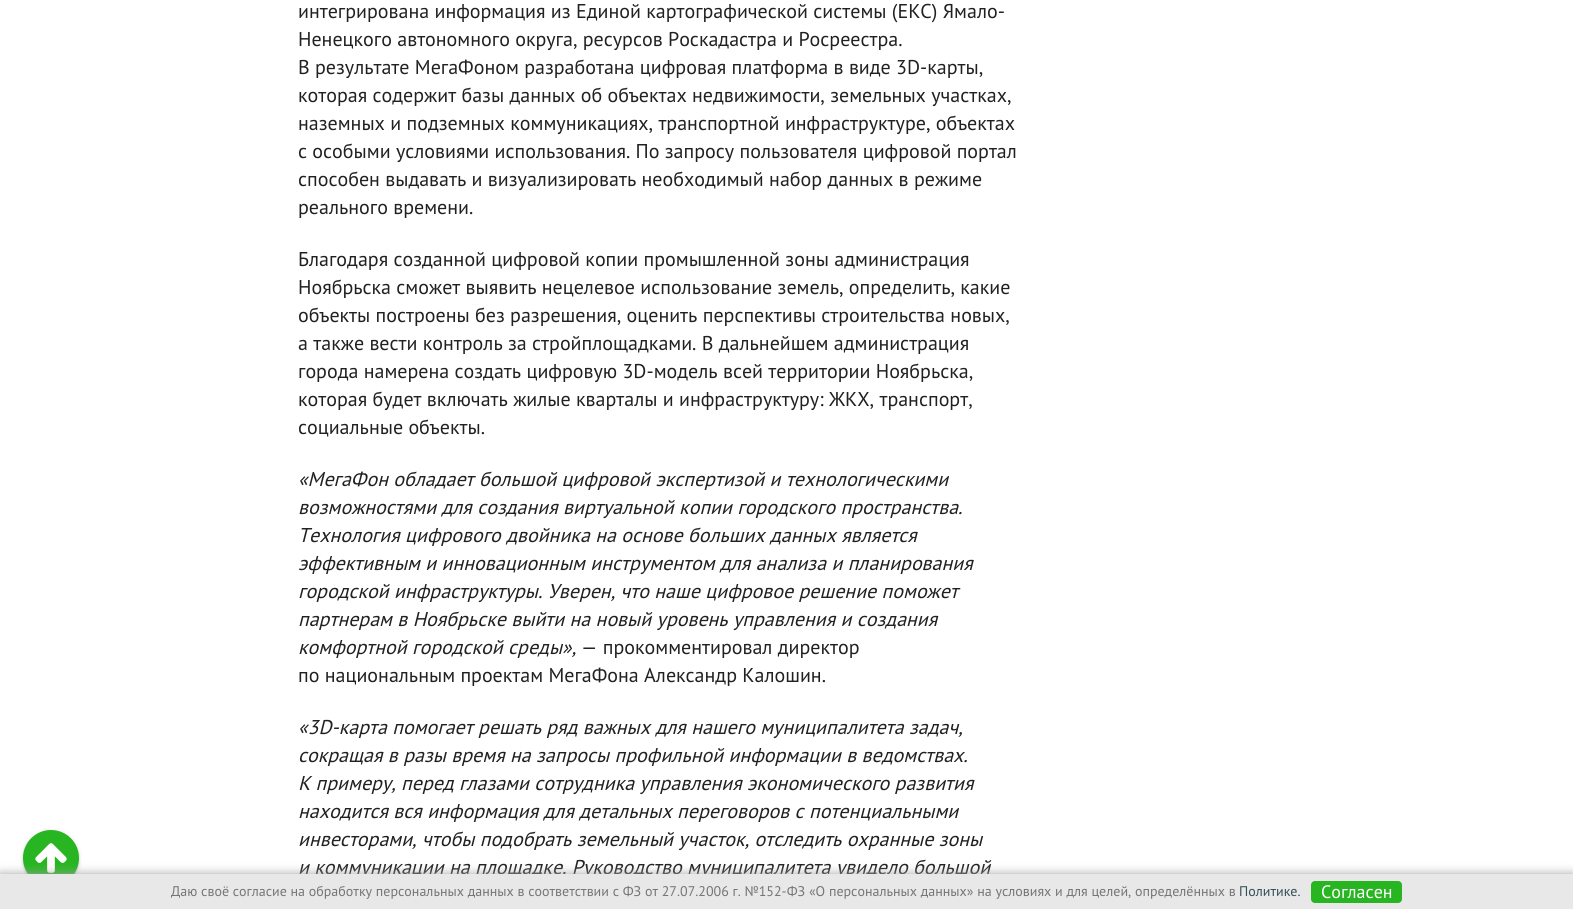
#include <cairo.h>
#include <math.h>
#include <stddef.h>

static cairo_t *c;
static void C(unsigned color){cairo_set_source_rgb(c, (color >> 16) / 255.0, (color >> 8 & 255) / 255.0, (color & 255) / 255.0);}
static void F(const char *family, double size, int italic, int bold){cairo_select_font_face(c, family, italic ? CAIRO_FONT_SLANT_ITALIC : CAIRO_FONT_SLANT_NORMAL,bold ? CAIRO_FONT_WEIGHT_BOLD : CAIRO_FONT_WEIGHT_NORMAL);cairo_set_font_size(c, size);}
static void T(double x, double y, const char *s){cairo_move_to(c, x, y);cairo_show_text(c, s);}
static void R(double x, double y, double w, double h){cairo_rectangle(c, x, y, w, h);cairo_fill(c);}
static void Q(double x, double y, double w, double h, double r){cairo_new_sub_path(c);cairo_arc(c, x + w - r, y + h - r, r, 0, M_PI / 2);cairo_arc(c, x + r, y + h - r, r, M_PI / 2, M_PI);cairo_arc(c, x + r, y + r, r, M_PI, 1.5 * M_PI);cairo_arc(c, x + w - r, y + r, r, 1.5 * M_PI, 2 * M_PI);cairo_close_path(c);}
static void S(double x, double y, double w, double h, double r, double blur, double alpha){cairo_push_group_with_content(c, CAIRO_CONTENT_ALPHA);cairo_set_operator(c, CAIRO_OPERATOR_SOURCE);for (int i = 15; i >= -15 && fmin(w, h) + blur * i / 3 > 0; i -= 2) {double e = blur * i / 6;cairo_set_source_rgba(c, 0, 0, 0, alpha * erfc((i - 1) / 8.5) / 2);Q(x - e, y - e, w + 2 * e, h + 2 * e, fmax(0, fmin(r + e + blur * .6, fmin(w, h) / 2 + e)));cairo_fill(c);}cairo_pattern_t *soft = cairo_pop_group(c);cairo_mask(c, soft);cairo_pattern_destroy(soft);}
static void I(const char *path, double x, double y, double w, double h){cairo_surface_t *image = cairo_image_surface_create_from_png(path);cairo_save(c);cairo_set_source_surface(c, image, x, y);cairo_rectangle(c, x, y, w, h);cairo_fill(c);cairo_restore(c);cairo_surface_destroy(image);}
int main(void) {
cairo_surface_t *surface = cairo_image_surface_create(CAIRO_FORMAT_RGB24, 1573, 909);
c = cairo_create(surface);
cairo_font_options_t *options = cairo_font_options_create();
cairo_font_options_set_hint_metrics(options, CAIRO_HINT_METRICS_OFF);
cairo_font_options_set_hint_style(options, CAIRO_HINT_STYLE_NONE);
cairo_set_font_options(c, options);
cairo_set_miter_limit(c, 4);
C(0xffffff);
cairo_paint(c);
C(0x000000);
S(23,831,56,56,28,2.5,.12);
S(23,832,56,56,28,1,.14);
C(0x27b521);
cairo_arc(c,51,858,28,0,2 * M_PI);
cairo_fill(c);
I("1.png",35,843,32,30);
F("PT Sans",20,0,0);
C(0x212121);
T(298,18,"интегрирована информация из Единой картографической системы (ЕКС) Ямало-");
T(298,46,"Ненецкого автономного округа, ресурсов Роскадастра и Росреестра.");
T(298,74,"В результате МегаФоном разработана цифровая платформа в виде 3D-карты,");
T(298,102,"которая содержит базы данных об объектах недвижимости, земельных участках,");
T(298,130,"наземных и подземных коммуникациях, транспортной инфраструктуре, объектах");
T(298,158,"с особыми условиями использования. По запросу пользователя цифровой портал");
T(298,186,"способен выдавать и визуализировать необходимый набор данных в режиме");
T(298,214,"реального времени.");
T(298,266,"Благодаря созданной цифровой копии промышленной зоны администрация");
T(298,294,"Ноябрьска сможет выявить нецелевое использование земель, определить, какие");
T(298,322,"объекты построены без разрешения, оценить перспективы строительства новых,");
T(298,350,"а также вести контроль за стройплощадками. В дальнейшем администрация");
T(298,378,"города намерена создать цифровую 3D-модель всей территории Ноябрьска,");
T(298,406,"которая будет включать жилые кварталы и инфраструктуру: ЖКХ, транспорт,");
T(298,434,"социальные объекты.");
F("PT Sans",20,1,0);
T(298,486,"«МегаФон обладает большой цифровой экспертизой и технологическими");
T(298,514,"возможностями для создания виртуальной копии городского пространства.");
T(298,542,"Технология цифрового двойника на основе больших данных является");
T(298,570,"эффективным и инновационным инструментом для анализа и планирования");
T(298,598,"городской инфраструктуры. Уверен, что наше цифровое решение поможет");
T(298,626,"партнерам в Ноябрьске выйти на новый уровень управления и создания");
T(298,654,"комфортной городской среды»,");
F("PT Sans",20,0,0);
T(581,654,"— прокомментировал директор");
T(298,682,"по национальным проектам МегаФона Александр Калошин.");
F("PT Sans",20,1,0);
T(298,734,"«3D-карта помогает решать ряд важных для нашего муниципалитета задач,");
T(298,762,"сокращая в разы время на запросы профильной информации в ведомствах.");
T(298,790,"К примеру, перед глазами сотрудника управления экономического развития");
T(298,818,"находится вся информация для детальных переговоров с потенциальными");
T(298,846,"инвесторами, чтобы подобрать земельный участок, отследить охранные зоны");
T(298,874,"и коммуникации на площадке. Руководство муниципалитета увидело большой");
C(0xa2a2a2);
S(0,874,1573,35,0,5,1);
C(0xe8e8e8);
R(0,874,1573,35);
F("PT Sans",14,0,0);
C(0x757575);
T(171,896,"Даю своё согласие на обработку персональных данных в соответствии с ФЗ от 27.07.2006 г. №152-ФЗ «О персональных данных» на условиях и для целей, определённых в");
C(0x324e59);
T(1239,896,"Политике.");
C(0x27b521);
Q(1311,881,91,22,4);
cairo_fill(c);
F("PT Sans",18,0,0);
C(0xffffff);
T(1321,898,"Согласен");
cairo_surface_write_to_png(surface, "o.png");
cairo_font_options_destroy(options);
cairo_destroy(c);
cairo_surface_destroy(surface);
return 0;
}
